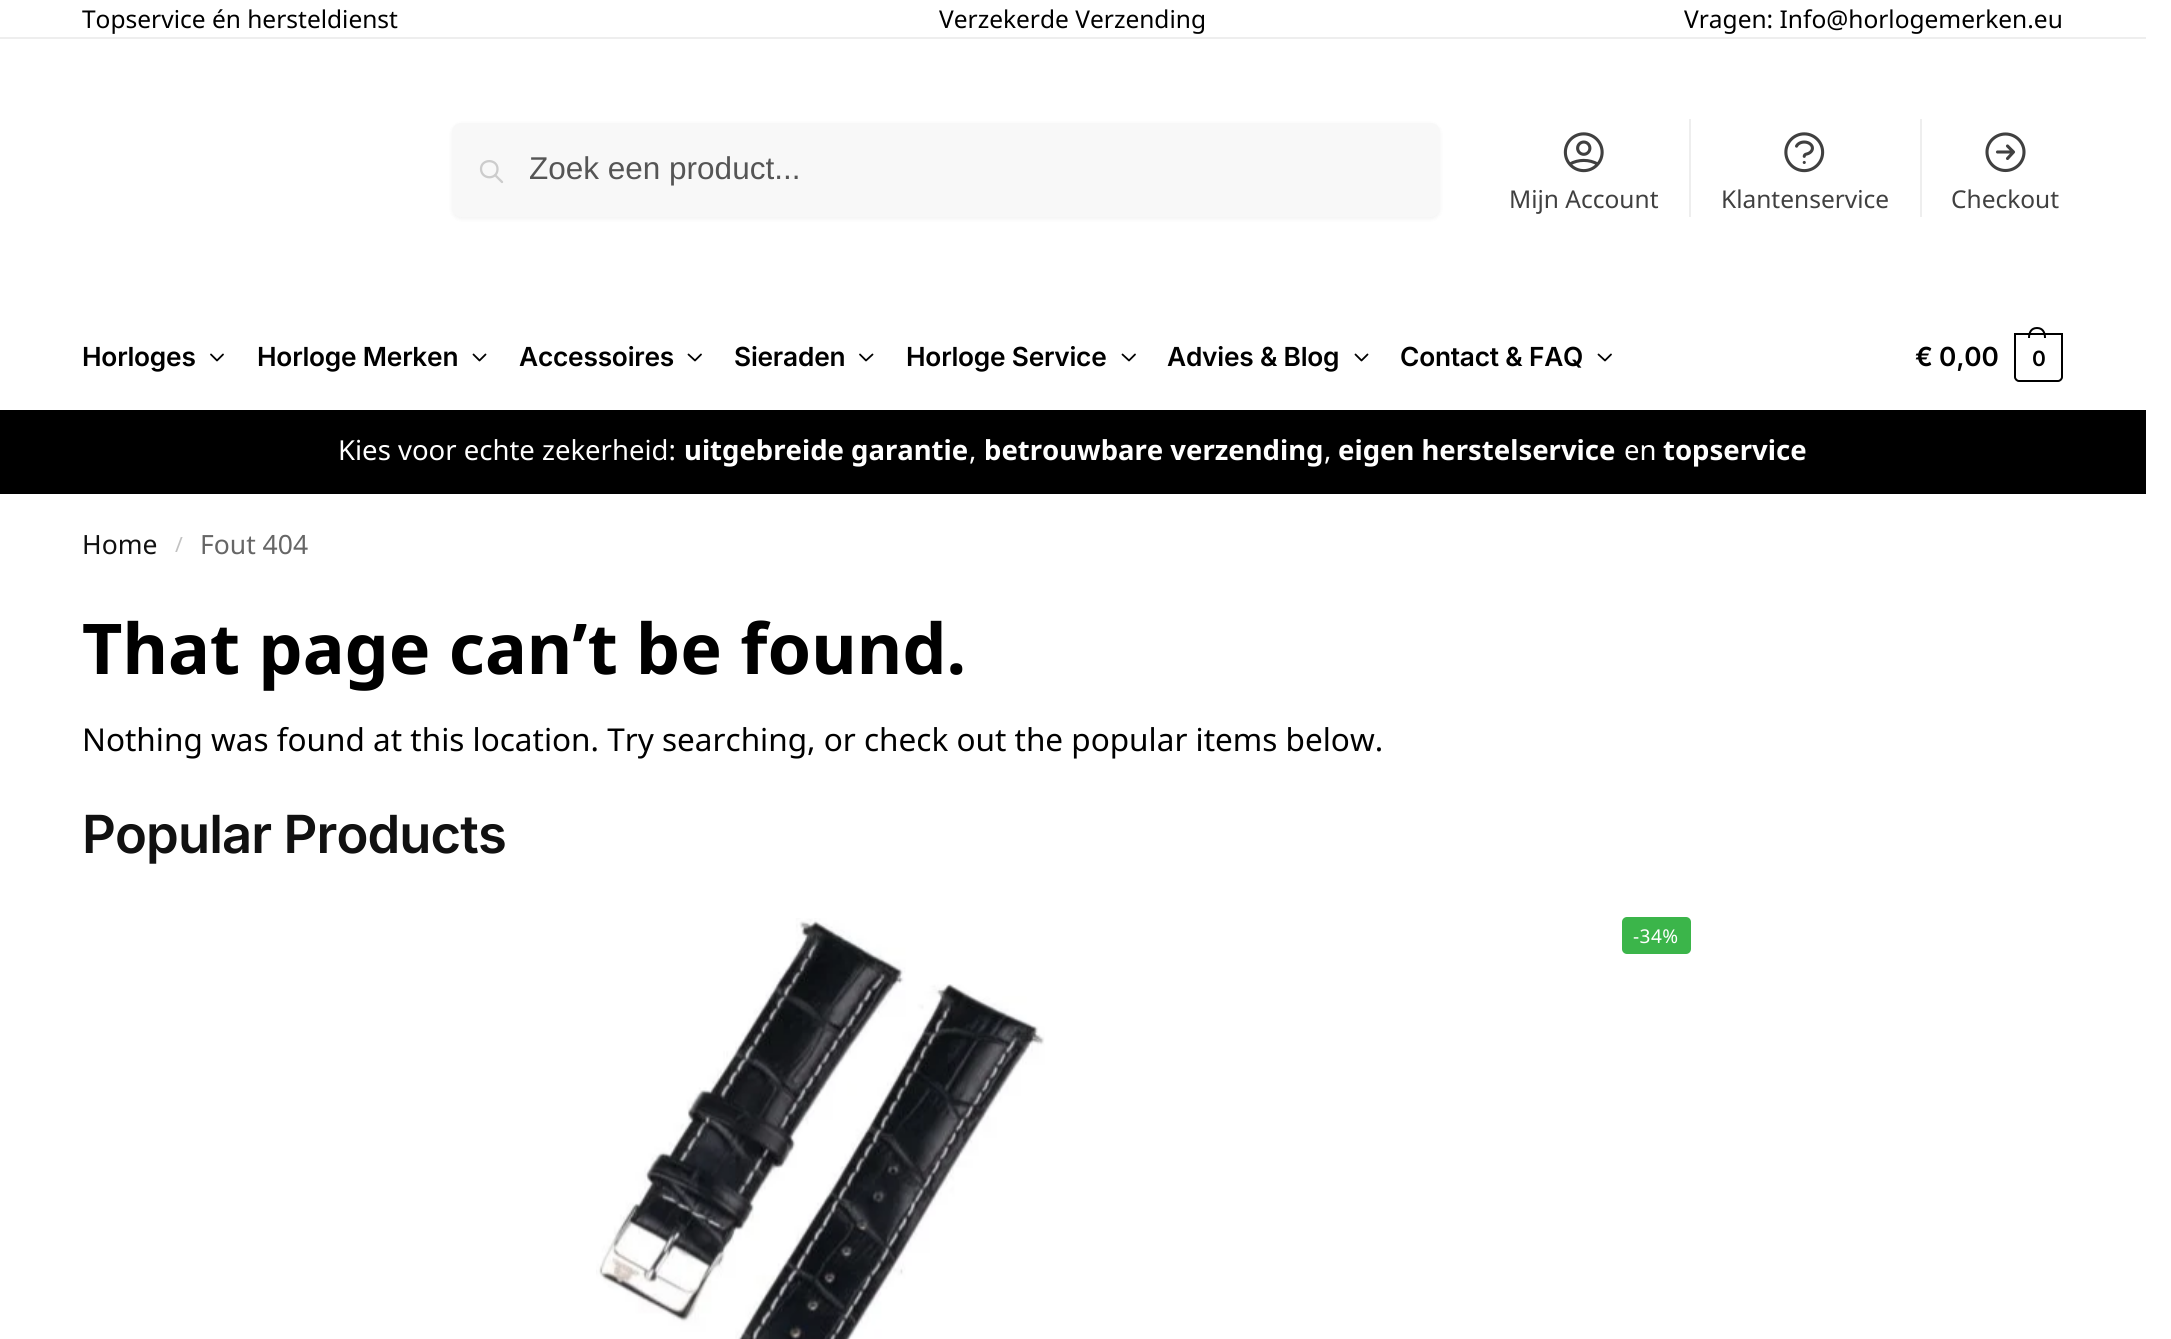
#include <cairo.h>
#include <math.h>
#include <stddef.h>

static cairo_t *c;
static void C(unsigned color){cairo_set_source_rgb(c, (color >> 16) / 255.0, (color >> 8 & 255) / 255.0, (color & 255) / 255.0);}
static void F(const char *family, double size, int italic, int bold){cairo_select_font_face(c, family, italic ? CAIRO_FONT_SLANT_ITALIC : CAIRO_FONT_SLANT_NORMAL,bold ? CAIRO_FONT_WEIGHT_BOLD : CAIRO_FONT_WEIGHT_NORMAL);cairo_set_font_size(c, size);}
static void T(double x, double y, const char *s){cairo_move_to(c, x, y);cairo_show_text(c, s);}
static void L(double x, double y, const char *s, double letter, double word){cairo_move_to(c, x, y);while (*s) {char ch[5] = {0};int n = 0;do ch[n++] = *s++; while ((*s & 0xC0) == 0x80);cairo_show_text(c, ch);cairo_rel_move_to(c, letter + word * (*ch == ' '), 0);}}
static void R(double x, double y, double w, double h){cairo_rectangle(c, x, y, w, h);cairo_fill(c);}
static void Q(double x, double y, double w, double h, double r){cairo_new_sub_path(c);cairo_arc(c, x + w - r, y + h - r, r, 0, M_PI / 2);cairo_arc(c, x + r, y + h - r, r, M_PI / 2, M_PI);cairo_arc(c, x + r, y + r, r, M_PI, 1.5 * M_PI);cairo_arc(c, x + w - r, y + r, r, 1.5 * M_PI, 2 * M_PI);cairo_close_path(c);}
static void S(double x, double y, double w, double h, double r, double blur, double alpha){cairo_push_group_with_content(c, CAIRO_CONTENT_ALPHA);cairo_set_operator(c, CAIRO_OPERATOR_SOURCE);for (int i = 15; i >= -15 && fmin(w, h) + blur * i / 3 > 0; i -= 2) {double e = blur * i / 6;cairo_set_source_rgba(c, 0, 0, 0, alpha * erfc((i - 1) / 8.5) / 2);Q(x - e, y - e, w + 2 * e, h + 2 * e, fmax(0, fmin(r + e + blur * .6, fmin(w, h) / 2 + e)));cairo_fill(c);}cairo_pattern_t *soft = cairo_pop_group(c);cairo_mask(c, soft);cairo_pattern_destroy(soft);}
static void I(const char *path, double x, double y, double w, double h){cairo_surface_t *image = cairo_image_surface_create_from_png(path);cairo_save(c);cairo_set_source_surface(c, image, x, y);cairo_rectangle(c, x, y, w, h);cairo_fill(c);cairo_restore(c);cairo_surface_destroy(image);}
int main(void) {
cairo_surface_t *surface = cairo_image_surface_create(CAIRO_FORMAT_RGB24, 2171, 1339);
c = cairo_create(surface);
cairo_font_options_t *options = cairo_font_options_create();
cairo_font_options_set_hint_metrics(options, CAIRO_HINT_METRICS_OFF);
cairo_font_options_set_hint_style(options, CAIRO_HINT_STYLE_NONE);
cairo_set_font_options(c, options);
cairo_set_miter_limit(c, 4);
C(0xffffff);
cairo_paint(c);
C(0xeeeeee);
R(0,37,2146,2);
F("Noto Sans",24.5,0,0);
C(0x000000);
T(82,28,"Topservice én hersteldienst");
T(939,28,"Verzekerde Verzending");
T(1684,28,"Vragen: Info@horlogemerken.eu");
C(0x000000);
S(452,124,988,95,9,2,.05);
C(0xf8f8f8);
Q(452,123,988,94,9);
cairo_fill(c);
cairo_new_path(c);
cairo_move_to(c,502,182);
cairo_line_to(c,495,175);
cairo_move_to(c,497.5,169);
cairo_curve_to(c,497.5,180,481.5,180,481,169);
cairo_curve_to(c,481,158.5,497.5,158.5,497.5,169);
cairo_close_path(c);
C(0xcccccc);
cairo_set_line_width(c,2.3);
cairo_set_line_cap(c,CAIRO_LINE_CAP_ROUND);
cairo_set_line_join(c,CAIRO_LINE_JOIN_ROUND);
cairo_stroke(c);
F("Liberation Sans",31.5,0,0);
C(0x555555);
T(529,179,"Zoek een product...");
I("1.png",1563,132,41,41);
F("Noto Sans",24.5,0,0);
C(0x404040);
T(1509,208,"Mijn Account");
C(0xeeeeee);
R(1689,119,2,98);
I("2.png",1784,132,41,41);
C(0x404040);
T(1721,208,"Klantenservice");
C(0xeeeeee);
R(1920,119,2,98);
cairo_new_path(c);
cairo_move_to(c,2007.5,146);
cairo_line_to(c,2013.5,152);
cairo_move_to(c,2013.5,152);
cairo_line_to(c,2007.5,158.5);
cairo_move_to(c,2013.5,152);
cairo_line_to(c,1997.5,152);
cairo_move_to(c,2024,152);
cairo_curve_to(c,2024,162.5,2015.5,170.5,2005.5,170.5);
cairo_curve_to(c,1995.5,170.5,1987,162.5,1987,152);
cairo_curve_to(c,1987,142,1995.5,134,2005.5,134);
cairo_curve_to(c,2015.5,134,2024,142,2024,152);
cairo_close_path(c);
C(0x404040);
cairo_set_line_width(c,3.1);
cairo_stroke(c);
T(1951,208,"Checkout");
F("Inter SemiBold",26.25,0,0);
C(0x000000);
L(82,366,"Horloges",-.2,0);
cairo_new_path(c);
cairo_move_to(c,223,354.5);
cairo_line_to(c,217,360.5);
cairo_line_to(c,211,354.5);
cairo_set_line_width(c,1.8);
cairo_stroke(c);
L(257,366,"Horloge Merken",-.2,0);
cairo_new_path(c);
cairo_move_to(c,485.5,354.5);
cairo_line_to(c,479.5,360.5);
cairo_line_to(c,473.5,354.5);
cairo_stroke(c);
L(519,366,"Accessoires",-.2,0);
cairo_new_path(c);
cairo_move_to(c,701,354.5);
cairo_line_to(c,695,360.5);
cairo_line_to(c,688.5,354.5);
cairo_stroke(c);
L(734,366,"Sieraden",-.2,0);
cairo_new_path(c);
cairo_move_to(c,872.5,354.5);
cairo_line_to(c,866,360.5);
cairo_line_to(c,860,354.5);
cairo_stroke(c);
L(906,366,"Horloge Service",-.2,0);
cairo_new_path(c);
cairo_move_to(c,1135,354.5);
cairo_line_to(c,1129,360.5);
cairo_line_to(c,1122.5,354.5);
cairo_stroke(c);
L(1167,366,"Advies & Blog",-.2,0);
cairo_new_path(c);
cairo_move_to(c,1367.5,354.5);
cairo_line_to(c,1361.5,360.5);
cairo_line_to(c,1355.5,354.5);
cairo_stroke(c);
L(1400,366,"Contact & FAQ",-.2,0);
cairo_new_path(c);
cairo_move_to(c,1611,354.5);
cairo_line_to(c,1605,360.5);
cairo_line_to(c,1598.5,354.5);
cairo_stroke(c);
L(1915,366,"€ 0,00",-.2,0);
cairo_new_path(c);
cairo_move_to(c,2015,334);
cairo_line_to(c,2062,334);
cairo_line_to(c,2062,377);
cairo_curve_to(c,2062,379,2060,381,2058,381);
cairo_line_to(c,2019,381);
cairo_curve_to(c,2017,381,2015,379,2015,377);
cairo_close_path(c);
cairo_set_line_width(c,2);
cairo_set_line_cap(c,CAIRO_LINE_CAP_BUTT);
cairo_set_line_join(c,CAIRO_LINE_JOIN_MITER);
cairo_stroke(c);
cairo_set_fill_rule(c,CAIRO_FILL_RULE_EVEN_ODD);
cairo_new_path(c);
cairo_move_to(c,2037,327);
cairo_curve_to(c,2043.5,327,2046,332,2046,338);
cairo_line_to(c,2028,338);
cairo_curve_to(c,2028,332,2030.5,327,2037,327);
cairo_close_path(c);
cairo_move_to(c,2037,329);
cairo_curve_to(c,2042.5,329,2044,333.5,2044,338);
cairo_line_to(c,2030,338);
cairo_curve_to(c,2030,333.5,2031.5,329,2037,329);
cairo_close_path(c);
cairo_fill(c);
F("Inter SemiBold",21,0,0);
L(2032,366,"0",-1,0);
R(0,410,2146,84);
F("Noto Sans",27.5,0,0);
C(0xffffff);
T(338,460,"Kies voor echte zekerheid:");
F("Noto Sans",27.5,0,1);
T(684,460,"uitgebreide garantie");
F("Noto Sans",27.5,0,0);
T(969,460,",");
F("Noto Sans",27.5,0,1);
T(984,460,"betrouwbare verzending");
F("Noto Sans",27.5,0,0);
T(1324,460,",");
F("Noto Sans",27.5,0,1);
T(1338,460,"eigen herstelservice");
F("Noto Sans",27.5,0,0);
T(1624,460,"en");
F("Noto Sans",27.5,0,1);
T(1663,460,"topservice");
F("Noto Sans",26.5,0,0);
C(0x111111);
T(82,554,"Home");
F("Noto Sans",21,0,0);
C(0xc2c2c2);
T(175,552,"/");
F("Noto Sans",26.5,0,0);
C(0x666666);
T(200,554,"Fout 404");
F("Noto Sans",70,0,1);
C(0x000000);
T(82,674,"That page can’t be found.");
F("Noto Sans",31.5,0,0);
T(82,751,"Nothing was found at this location. Try searching, or check out the popular items below.");
F("Inter SemiBold",52.5,0,0);
C(0x111111);
L(82,853,"Popular Products",-.9,0);
I("3.png",596,918,449,421);
C(0x3bb54a);
Q(1622,917,69,37,5);
cairo_fill(c);
F("Noto Sans",19,0,0);
C(0xffffff);
L(1633,943,"-34%",.5,0);
cairo_surface_write_to_png(surface, "o.png");
cairo_font_options_destroy(options);
cairo_destroy(c);
cairo_surface_destroy(surface);
return 0;
}
